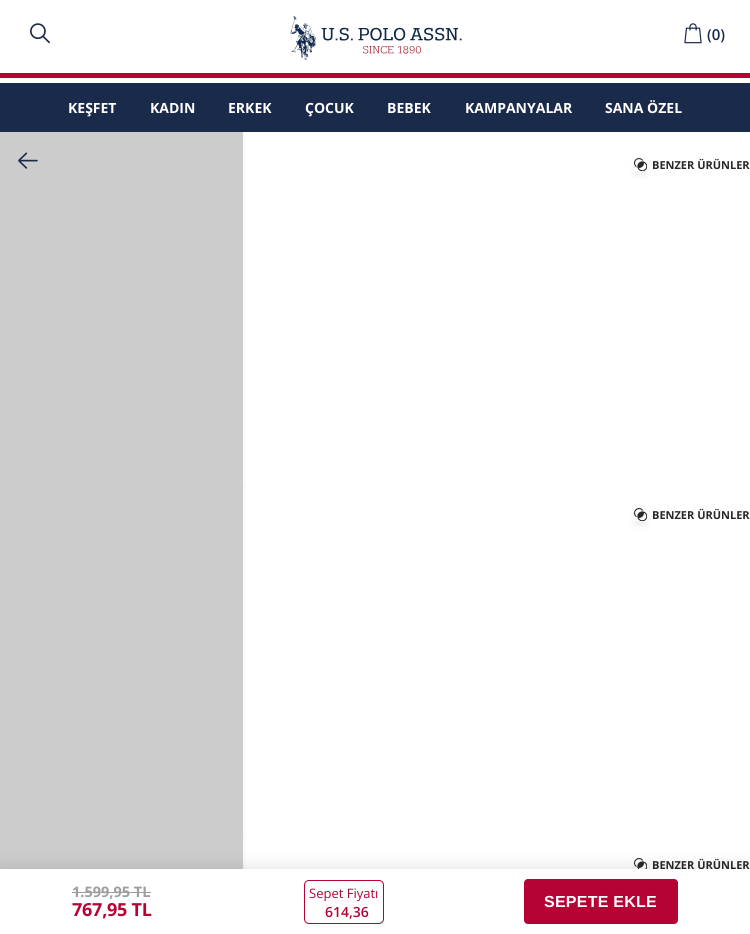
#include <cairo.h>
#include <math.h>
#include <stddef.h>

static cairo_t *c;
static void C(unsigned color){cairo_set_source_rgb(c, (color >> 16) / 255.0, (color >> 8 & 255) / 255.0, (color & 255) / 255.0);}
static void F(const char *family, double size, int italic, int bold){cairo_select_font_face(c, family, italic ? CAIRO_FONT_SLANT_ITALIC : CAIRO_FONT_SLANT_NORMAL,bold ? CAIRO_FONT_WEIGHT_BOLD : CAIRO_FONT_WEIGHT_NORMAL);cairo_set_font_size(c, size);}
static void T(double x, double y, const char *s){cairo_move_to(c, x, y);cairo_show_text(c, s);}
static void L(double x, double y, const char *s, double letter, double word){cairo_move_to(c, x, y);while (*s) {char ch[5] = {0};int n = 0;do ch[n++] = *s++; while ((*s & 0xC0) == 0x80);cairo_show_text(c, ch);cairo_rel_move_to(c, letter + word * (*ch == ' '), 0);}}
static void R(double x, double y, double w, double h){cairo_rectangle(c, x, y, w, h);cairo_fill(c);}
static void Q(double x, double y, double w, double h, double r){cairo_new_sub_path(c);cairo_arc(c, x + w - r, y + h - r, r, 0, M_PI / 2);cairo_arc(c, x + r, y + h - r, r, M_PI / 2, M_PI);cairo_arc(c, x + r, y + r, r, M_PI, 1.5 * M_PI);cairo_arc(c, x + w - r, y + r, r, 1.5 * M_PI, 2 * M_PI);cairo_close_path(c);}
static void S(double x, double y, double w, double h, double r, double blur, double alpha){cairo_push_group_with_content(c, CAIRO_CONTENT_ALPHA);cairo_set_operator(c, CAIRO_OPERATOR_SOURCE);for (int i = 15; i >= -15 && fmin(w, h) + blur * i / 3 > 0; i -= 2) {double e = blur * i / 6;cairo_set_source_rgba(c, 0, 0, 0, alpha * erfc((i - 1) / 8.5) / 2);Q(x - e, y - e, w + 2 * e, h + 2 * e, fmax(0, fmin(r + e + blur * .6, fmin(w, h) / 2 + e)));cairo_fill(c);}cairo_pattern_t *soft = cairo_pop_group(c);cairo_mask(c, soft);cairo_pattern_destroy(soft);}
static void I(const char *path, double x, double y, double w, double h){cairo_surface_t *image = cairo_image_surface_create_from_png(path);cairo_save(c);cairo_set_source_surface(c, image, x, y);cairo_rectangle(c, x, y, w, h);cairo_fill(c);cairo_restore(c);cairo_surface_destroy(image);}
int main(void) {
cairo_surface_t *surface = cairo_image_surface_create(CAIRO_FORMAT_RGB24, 750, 934);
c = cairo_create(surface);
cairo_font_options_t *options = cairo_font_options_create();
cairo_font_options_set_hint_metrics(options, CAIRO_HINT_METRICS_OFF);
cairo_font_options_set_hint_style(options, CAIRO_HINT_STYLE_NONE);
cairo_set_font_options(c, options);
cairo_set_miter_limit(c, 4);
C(0xffffff);
cairo_paint(c);
I("1.png",30,23,20,21);
I("2.png",290,16,172,44);
I("3.png",684,23,18,21);
F("Open Sans SemiBold",15,0,0);
C(0x1a2a4a);
T(707,40,"(0)");
C(0xb70234);
R(0,73,750,5);
C(0xb5b5b5);
S(-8,137,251,350,0,2.5,.2);
C(0x1a2a4a);
R(0,83,750,49);
F("Open Sans",14,0,1);
C(0xffffff);
T(68,113,"KEŞFET");
T(150,113,"KADIN");
T(228,113,"ERKEK");
T(305,113,"ÇOCUK");
T(387,113,"BEBEK");
T(465,113,"KAMPANYALAR");
T(605,113,"SANA ÖZEL");
C(0xcccccc);
R(0,132,243,350);
I("4.png",18,152,20,17);
cairo_save(c);
cairo_set_fill_rule(c,CAIRO_FILL_RULE_EVEN_ODD);
cairo_new_path(c);
cairo_move_to(c,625,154);
cairo_line_to(c,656,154);
cairo_line_to(c,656,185);
cairo_line_to(c,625,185);
cairo_close_path(c);
cairo_move_to(c,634,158);
cairo_line_to(c,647,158);
cairo_line_to(c,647,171);
cairo_line_to(c,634,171);
cairo_close_path(c);
cairo_clip(c);
C(0xb5b5b5);
S(634,163,13,13,0,2.5,.2);
cairo_restore(c);
I("5.png",634,158,13,13);
F("Open Sans",11,0,1);
C(0x282828);
T(652,169,"BENZER ÜRÜNLER");
C(0xb5b5b5);
S(-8,487,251,350,0,2.5,.2);
C(0xcccccc);
R(0,482,243,350);
cairo_save(c);
cairo_set_fill_rule(c,CAIRO_FILL_RULE_EVEN_ODD);
cairo_new_path(c);
cairo_move_to(c,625,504);
cairo_line_to(c,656,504);
cairo_line_to(c,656,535);
cairo_line_to(c,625,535);
cairo_close_path(c);
cairo_move_to(c,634,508);
cairo_line_to(c,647,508);
cairo_line_to(c,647,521);
cairo_line_to(c,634,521);
cairo_close_path(c);
cairo_clip(c);
C(0xb5b5b5);
S(634,513,13,13,0,2.5,.2);
cairo_restore(c);
I("5.png",634,508,13,13);
C(0x282828);
T(652,519,"BENZER ÜRÜNLER");
C(0xb5b5b5);
S(-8,837,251,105,0,2.5,.2);
C(0xcccccc);
R(0,832,243,37);
cairo_save(c);
cairo_set_fill_rule(c,CAIRO_FILL_RULE_EVEN_ODD);
cairo_new_path(c);
cairo_move_to(c,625,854);
cairo_line_to(c,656,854);
cairo_line_to(c,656,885);
cairo_line_to(c,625,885);
cairo_close_path(c);
cairo_move_to(c,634,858);
cairo_line_to(c,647,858);
cairo_line_to(c,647,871);
cairo_line_to(c,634,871);
cairo_close_path(c);
cairo_clip(c);
C(0xb5b5b5);
S(634,863,13,13,0,2.5,.2);
cairo_restore(c);
I("6.png",634,858,13,11);
C(0x282828);
T(652,869,"BENZER ÜRÜNLER");
C(0x000000);
S(0,866,750,65,0,7.5,.1);
C(0xffffff);
R(0,869,750,65);
F("Open Sans",14.5,0,1);
C(0x9e9e9e);
T(72,897,"1.599,95 TL");
R(72,892,79,1);
F("Open Sans",18,0,1);
C(0xb70234);
L(72,916,"767,95 TL",-.25,0);
Q(304.5,880.5,79,43,4.5);
cairo_set_line_width(c,1);
cairo_stroke(c);
F("Open Sans",13,0,0);
T(309,898,"Sepet Fiyatı");
F("Open Sans SemiBold",14,0,0);
T(325,917,"614,36");
Q(524,879,154,45,4);
cairo_fill(c);
F("Liberation Sans",16,0,1);
C(0xffffff);
L(544,907,"SEPETE EKLE",.25,0);
cairo_surface_write_to_png(surface, "o.png");
cairo_font_options_destroy(options);
cairo_destroy(c);
cairo_surface_destroy(surface);
return 0;
}
